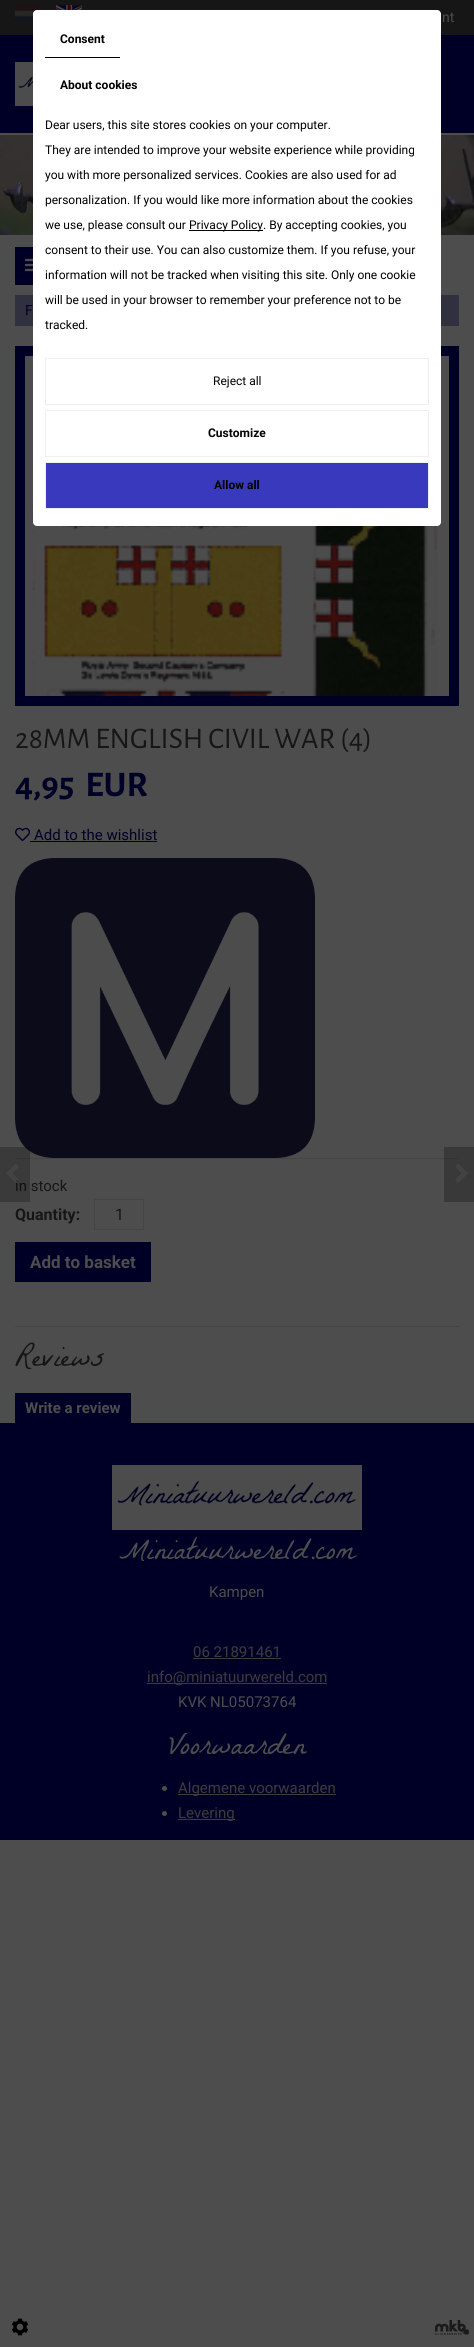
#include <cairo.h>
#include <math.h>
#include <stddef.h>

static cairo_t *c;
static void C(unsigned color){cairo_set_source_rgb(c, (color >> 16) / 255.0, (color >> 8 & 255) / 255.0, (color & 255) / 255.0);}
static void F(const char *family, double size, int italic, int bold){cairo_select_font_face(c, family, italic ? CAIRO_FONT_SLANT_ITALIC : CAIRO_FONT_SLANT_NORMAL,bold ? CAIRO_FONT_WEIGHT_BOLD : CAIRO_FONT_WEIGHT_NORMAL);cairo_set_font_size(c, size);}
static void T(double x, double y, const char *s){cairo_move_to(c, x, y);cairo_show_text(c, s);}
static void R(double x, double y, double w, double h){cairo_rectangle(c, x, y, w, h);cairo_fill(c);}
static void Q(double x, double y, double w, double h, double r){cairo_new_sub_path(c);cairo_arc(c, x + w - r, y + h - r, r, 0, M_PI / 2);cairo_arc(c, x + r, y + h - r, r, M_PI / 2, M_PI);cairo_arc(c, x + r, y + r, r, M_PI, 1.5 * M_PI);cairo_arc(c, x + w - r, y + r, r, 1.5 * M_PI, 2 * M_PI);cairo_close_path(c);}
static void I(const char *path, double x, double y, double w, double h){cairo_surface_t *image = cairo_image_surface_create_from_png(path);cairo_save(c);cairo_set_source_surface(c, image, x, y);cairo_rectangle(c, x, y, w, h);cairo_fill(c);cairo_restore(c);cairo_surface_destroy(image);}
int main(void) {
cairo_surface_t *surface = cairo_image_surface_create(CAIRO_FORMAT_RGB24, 474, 2347);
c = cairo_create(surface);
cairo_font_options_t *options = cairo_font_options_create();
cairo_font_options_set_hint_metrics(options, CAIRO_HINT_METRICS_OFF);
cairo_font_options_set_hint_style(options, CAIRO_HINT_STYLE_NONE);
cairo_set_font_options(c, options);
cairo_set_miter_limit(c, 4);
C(0x4d4d4d);
cairo_paint(c);
C(0x393939);
R(444,1147,30,55);
C(0x161616);
R(0,0,474,35);
I("1.png",15,5,26,17);
I("2.png",56,5,26,5);
F("Roboto",14,0,0);
C(0x4d4d4d);
T(442,22,"nt");
C(0x000026);
R(0,35,474,98);
I("3.png",15,62,18,44);
I("4.png",0,135,474,100);
R(15,247,18,38);
I("5.png",25,258,8,14);
C(0x30303e);
R(15,295,444,31);
C(0x000026);
T(25,315,"F");
cairo_rectangle(c,20,351,434,350);
cairo_set_line_width(c,10);
cairo_stroke(c);
I("6.png",31,356,407,340);
F("Alegreya Sans",30,0,0);
C(0x161616);
T(15,748,"28MM ENGLISH CIVIL WAR (4)");
F("Alegreya Sans",36,0,1);
C(0x000026);
T(15,796,"4,95  EUR");
I("7.png",15,827,15,14);
F("Roboto",15,0,0);
T(34,840,"Add to the wishlist");
R(30,841,127,1);
I("8.png",15,858,300,300);
C(0x454545);
R(15,1158,429,1);
C(0x161616);
T(15,1191,"in stock");
cairo_set_source_rgba(c,0,0,0,0.25);
R(0,1147,30,55);
I("9.png",6,1164,13,19);
I("10.png",455,1164,13,19);
C(0x343434);
R(444,1158,15,1);
F("Roboto",16,0,1);
C(0x161616);
T(15,1220,"Quantity:");
cairo_rectangle(c,94.5,1199.5,49,30);
C(0x454545);
cairo_set_line_width(c,1);
cairo_stroke(c);
F("Roboto",16,0,0);
C(0x161616);
T(115,1220,"1");
C(0x000026);
R(15,1242,136,40);
F("Roboto",17,0,1);
C(0x4d4d4d);
T(30,1268,"Add to basket");
C(0x454545);
R(15,1326,444,1);
F("La Belle Aurore",30,0,0);
C(0x161616);
T(15,1366,"Reviews");
C(0x000026);
R(15,1393,116,30);
F("Roboto",15,0,1);
C(0x4d4d4d);
T(25,1413,"Write a review");
C(0x000026);
R(0,1423,474,417);
I("11.png",112,1465,250,65);
F("La Belle Aurore",30,0,0);
C(0x4d4d4d);
T(119,1559,"Miniatuurwereld.com");
F("Roboto",15,0,0);
T(209,1597,"Kampen");
C(0x3d3b3b);
T(193,1657,"06 21891461");
R(193,1658,88,1);
R(147,1683,180,1);
T(147,1682,"info@miniatuurwereld.com");
C(0x4d4d4d);
T(178,1707,"KVK NL05073764");
F("La Belle Aurore",30,0,0);
T(169,1754,"Voorwaarden");
cairo_new_path(c);
cairo_arc(c,164.5,1788.5,2.5,0,2 * M_PI);
cairo_fill(c);
C(0x3d3b3b);
R(178,1794,158,1);
F("Roboto",15,0,0);
T(178,1793,"Algemene voorwaarden");
C(0x4d4d4d);
cairo_new_path(c);
cairo_arc(c,164.5,1813.5,2.5,0,2 * M_PI);
cairo_fill(c);
C(0x3d3b3b);
R(178,1819,57,1);
T(178,1818,"Levering");
C(0xffffff);
Q(33,10,408,516,4);
cairo_fill(c);
C(0x000000);
R(45,57,75,1);
F("Roboto",12,0,1);
T(60,43,"Consent");
T(60,89,"About cookies");
F("Roboto",12,0,0);
T(45,129,"Dear users, this site stores cookies on your computer.");
T(45,154,"They are intended to improve your website experience while providing");
T(45,179,"you with more personalized services. Cookies are also used for ad");
T(45,204,"personalization. If you would like more information about the cookies");
T(45,229,"we use, please consult our");
R(189,230,74,1);
T(189,229,"Privacy Policy. By accepting cookies, you");
T(45,254,"consent to their use. You can also customize them. If you refuse, your");
T(45,279,"information will not be tracked when visiting this site. Only one cookie");
T(45,304,"will be used in your browser to remember your preference not to be");
T(45,329,"tracked.");
cairo_rectangle(c,45.5,358.5,383,46);
C(0xf0f0f0);
cairo_stroke(c);
C(0x000000);
T(213,385,"Reject all");
cairo_rectangle(c,45.5,410.5,383,46);
C(0xf0f0f0);
cairo_stroke(c);
F("Roboto",12,0,1);
C(0x000000);
T(208,437,"Customize");
C(0x3939bd);
cairo_rectangle(c,45.5,462.5,383,46);
cairo_fill_preserve(c);
C(0xf0f0f0);
cairo_stroke(c);
C(0x000000);
T(214,489,"Allow all");
I("12.png",11,2318,18,18);
I("13.png",435,2319,35,16);
cairo_surface_write_to_png(surface, "o.png");
cairo_font_options_destroy(options);
cairo_destroy(c);
cairo_surface_destroy(surface);
return 0;
}
